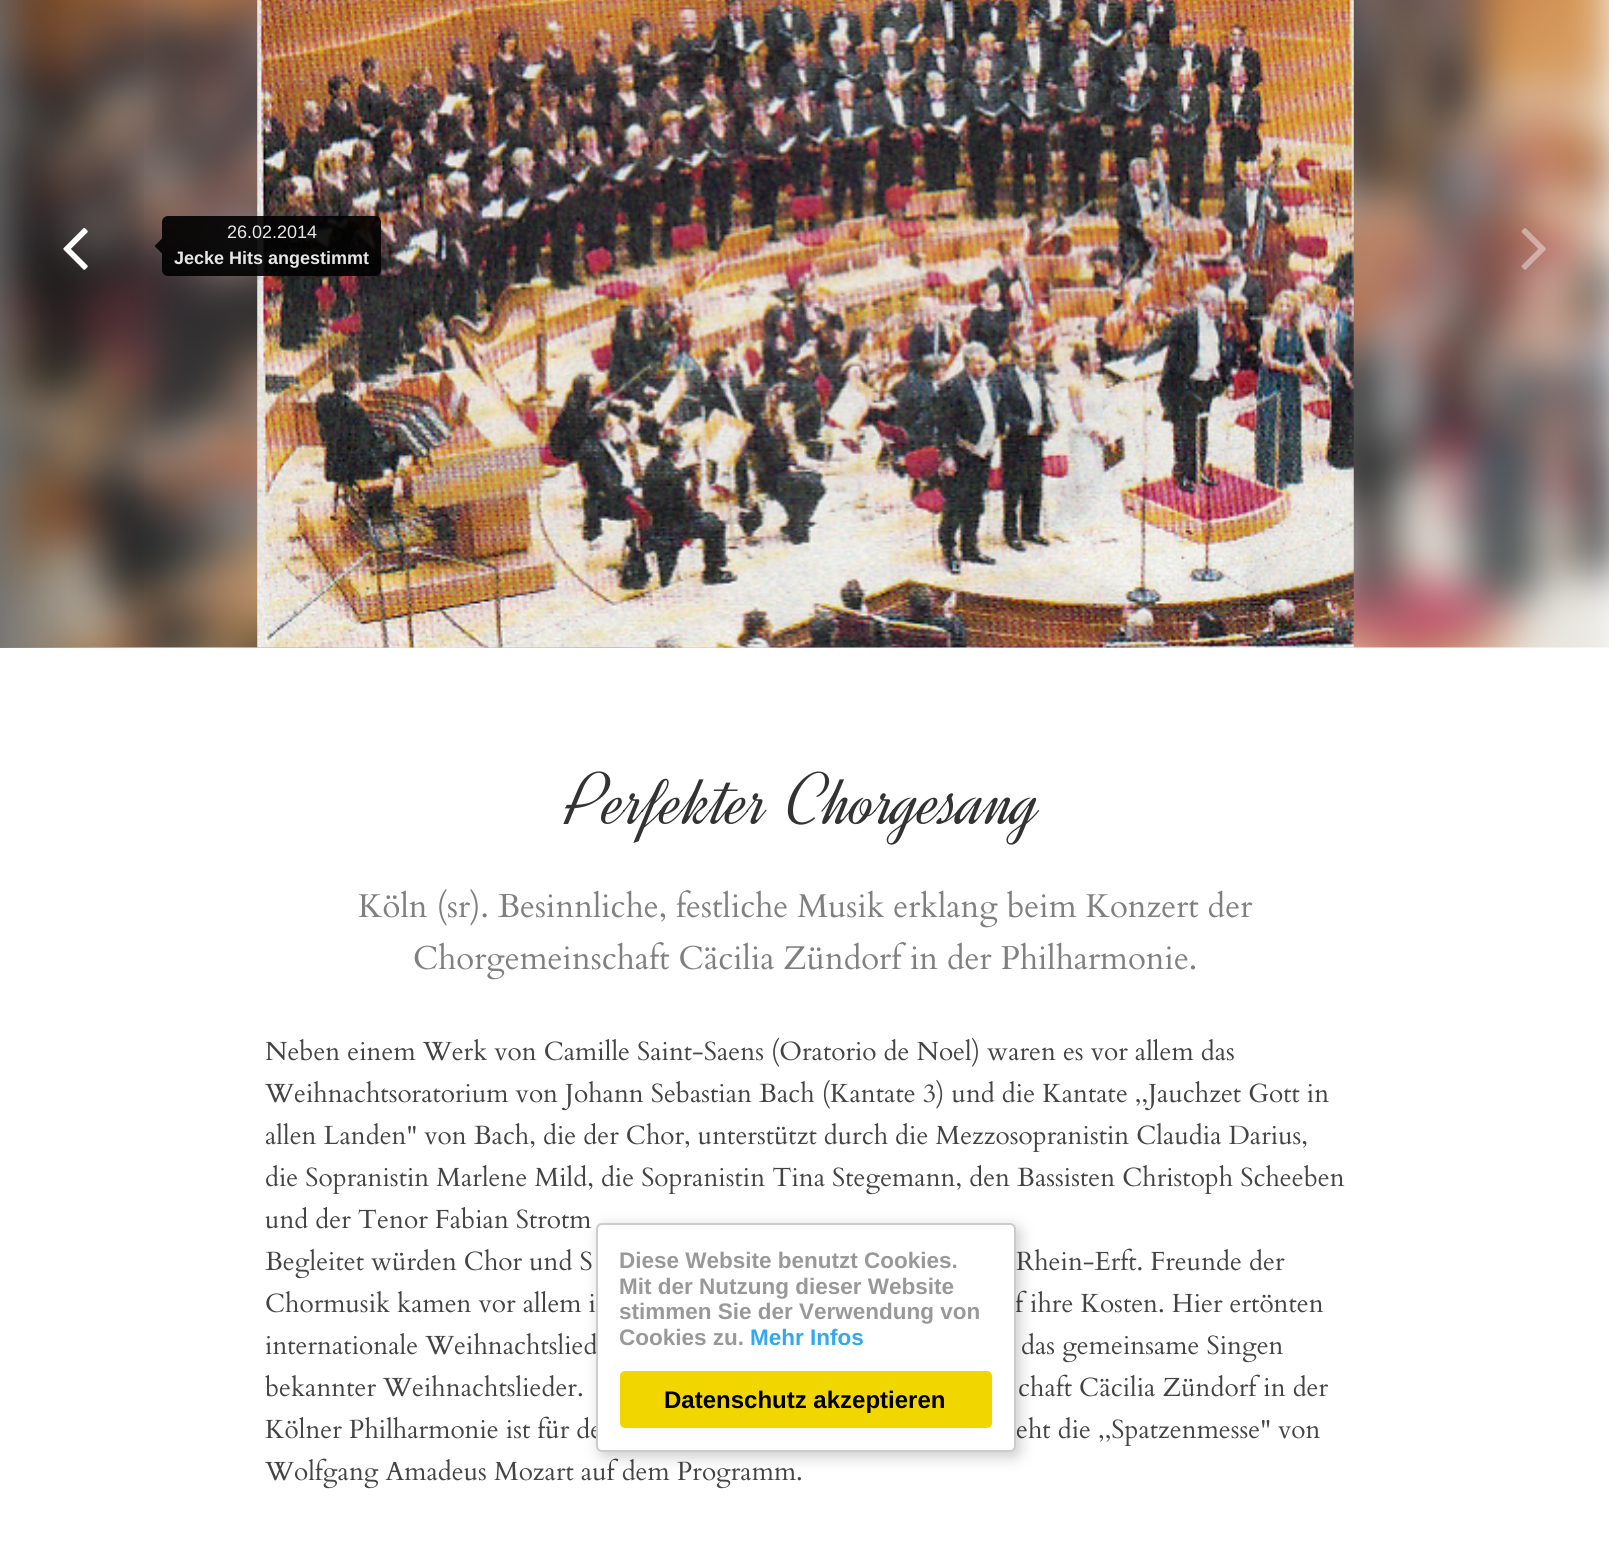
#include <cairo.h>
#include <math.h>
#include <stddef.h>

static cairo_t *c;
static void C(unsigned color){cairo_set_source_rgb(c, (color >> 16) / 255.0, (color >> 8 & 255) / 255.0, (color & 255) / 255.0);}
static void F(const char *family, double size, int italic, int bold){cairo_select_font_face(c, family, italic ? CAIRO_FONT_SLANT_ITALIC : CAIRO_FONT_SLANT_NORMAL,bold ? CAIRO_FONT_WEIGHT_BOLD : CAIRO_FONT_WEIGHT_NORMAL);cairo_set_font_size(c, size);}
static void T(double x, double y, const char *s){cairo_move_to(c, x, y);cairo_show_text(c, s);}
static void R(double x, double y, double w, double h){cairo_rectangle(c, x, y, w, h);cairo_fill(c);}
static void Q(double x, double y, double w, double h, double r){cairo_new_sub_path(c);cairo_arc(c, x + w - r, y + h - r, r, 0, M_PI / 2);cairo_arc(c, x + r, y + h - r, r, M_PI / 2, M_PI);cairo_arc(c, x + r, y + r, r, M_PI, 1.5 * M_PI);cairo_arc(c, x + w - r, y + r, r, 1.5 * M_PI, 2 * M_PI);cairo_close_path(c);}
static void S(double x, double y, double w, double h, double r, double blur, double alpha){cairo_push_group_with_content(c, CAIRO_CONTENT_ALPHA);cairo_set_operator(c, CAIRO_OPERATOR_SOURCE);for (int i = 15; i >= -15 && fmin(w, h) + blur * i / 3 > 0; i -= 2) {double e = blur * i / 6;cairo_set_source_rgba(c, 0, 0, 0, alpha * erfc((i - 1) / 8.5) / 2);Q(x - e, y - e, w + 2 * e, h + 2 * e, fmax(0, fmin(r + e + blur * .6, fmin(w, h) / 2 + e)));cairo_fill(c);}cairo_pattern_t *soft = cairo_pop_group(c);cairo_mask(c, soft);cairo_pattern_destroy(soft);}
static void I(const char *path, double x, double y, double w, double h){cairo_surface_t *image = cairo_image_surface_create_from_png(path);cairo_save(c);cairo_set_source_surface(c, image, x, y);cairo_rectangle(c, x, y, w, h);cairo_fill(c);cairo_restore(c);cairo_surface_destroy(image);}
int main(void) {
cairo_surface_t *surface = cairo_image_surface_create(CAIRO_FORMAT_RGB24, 1609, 1541);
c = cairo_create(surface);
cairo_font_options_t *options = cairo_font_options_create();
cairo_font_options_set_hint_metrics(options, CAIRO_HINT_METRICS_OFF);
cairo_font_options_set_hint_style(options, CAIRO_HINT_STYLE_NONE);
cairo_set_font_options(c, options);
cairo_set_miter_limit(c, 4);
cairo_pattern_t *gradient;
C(0xffffff);
cairo_paint(c);
I("1.png",0,0,1609,648);
gradient = cairo_pattern_create_linear(0,246,150,246);
cairo_pattern_add_color_stop_rgba(gradient,0,0,0,0,.5);
cairo_pattern_add_color_stop_rgba(gradient,1,0,0,0,0);
cairo_set_source(c,gradient);
cairo_pattern_destroy(gradient);
R(0,0,144,648);
I("2.png",63,228,25,42);
I("3.png",257,0,1097,648);
cairo_set_source_rgba(c,0,0,0,0.9);
cairo_new_path(c);
cairo_move_to(c,162,238.5);
cairo_line_to(c,162,253.5);
cairo_line_to(c,154.5,246);
cairo_close_path(c);
cairo_fill(c);
Q(162,216,219,60,6);
cairo_fill(c);
F("Liberation Sans",18,0,0);
C(0xe7e6e7);
T(227,238,"26.02.2014");
F("Liberation Sans",18,0,1);
T(174,264,"Jecke Hits angestimmt");
I("4.png",1521,228,25,42);
F("Dynalight",75,0,0);
C(0x333333);
T(567,824,"Perfekter Chorgesang");
F("Cardo",33,0,0);
C(0x808080);
T(358,917,"Köln (sr). Besinnliche, festliche Musik erklang beim Konzert der");
T(413,969,"Chorgemeinschaft Cäcilia Zündorf in der Philharmonie.");
F("Cardo",26.25,0,0);
C(0x444444);
T(265,1060,"Neben einem Werk von Camille Saint-Saens (Oratorio de Noel) waren es vor allem das");
T(265,1102,"Weihnachtsoratorium von Johann Sebastian Bach (Kantate 3) und die Kantate ,,Jauchzet Gott in");
T(265,1144,"allen Landen\" von Bach, die der Chor, unterstützt durch die Mezzosopranistin Claudia Darius,");
T(265,1186,"die Sopranistin Marlene Mild, die Sopranistin Tina Stegemann, den Bassisten Christoph Scheeben");
T(265,1228,"und der Tenor Fabian Strotm");
T(265,1270,"Begleitet würden Chor und S");
T(1016,1270,"Rhein-Erft. Freunde der");
T(265,1312,"Chormusik kamen vor allem i");
T(1015,1312,"f ihre Kosten. Hier ertönten");
T(265,1354,"internationale Weihnachtslied");
T(1021,1354,"das gemeinsame Singen");
T(265,1396,"bekannter Weihnachtslieder.");
T(1018,1396,"chaft Cäcilia Zündorf in der");
T(265,1438,"Kölner Philharmonie ist für de");
T(1016,1438,"eht die ,,Spatzenmesse\" von");
T(265,1480,"Wolfgang Amadeus Mozart auf dem Programm.");
C(0x000000);
S(600,1227,420,230,6,7.5,.2);
C(0xffffff);
Q(597,1224,418,227,5);
cairo_fill_preserve(c);
C(0xcccccc);
cairo_stroke(c);
F("Liberation Sans",22.5,0,1);
C(0x999999);
T(619,1268,"Diese Website benutzt Cookies.");
T(619,1294,"Mit der Nutzung dieser Website");
T(619,1319,"stimmen Sie der Verwendung von");
T(619,1345,"Cookies zu.");
C(0x31a8f0);
T(750,1345,"Mehr Infos");
C(0xf1d600);
Q(620,1371,372,57,5);
cairo_fill(c);
F("Liberation Sans",24,0,1);
C(0x000000);
T(664,1408,"Datenschutz akzeptieren");
cairo_surface_write_to_png(surface, "o.png");
cairo_font_options_destroy(options);
cairo_destroy(c);
cairo_surface_destroy(surface);
return 0;
}
